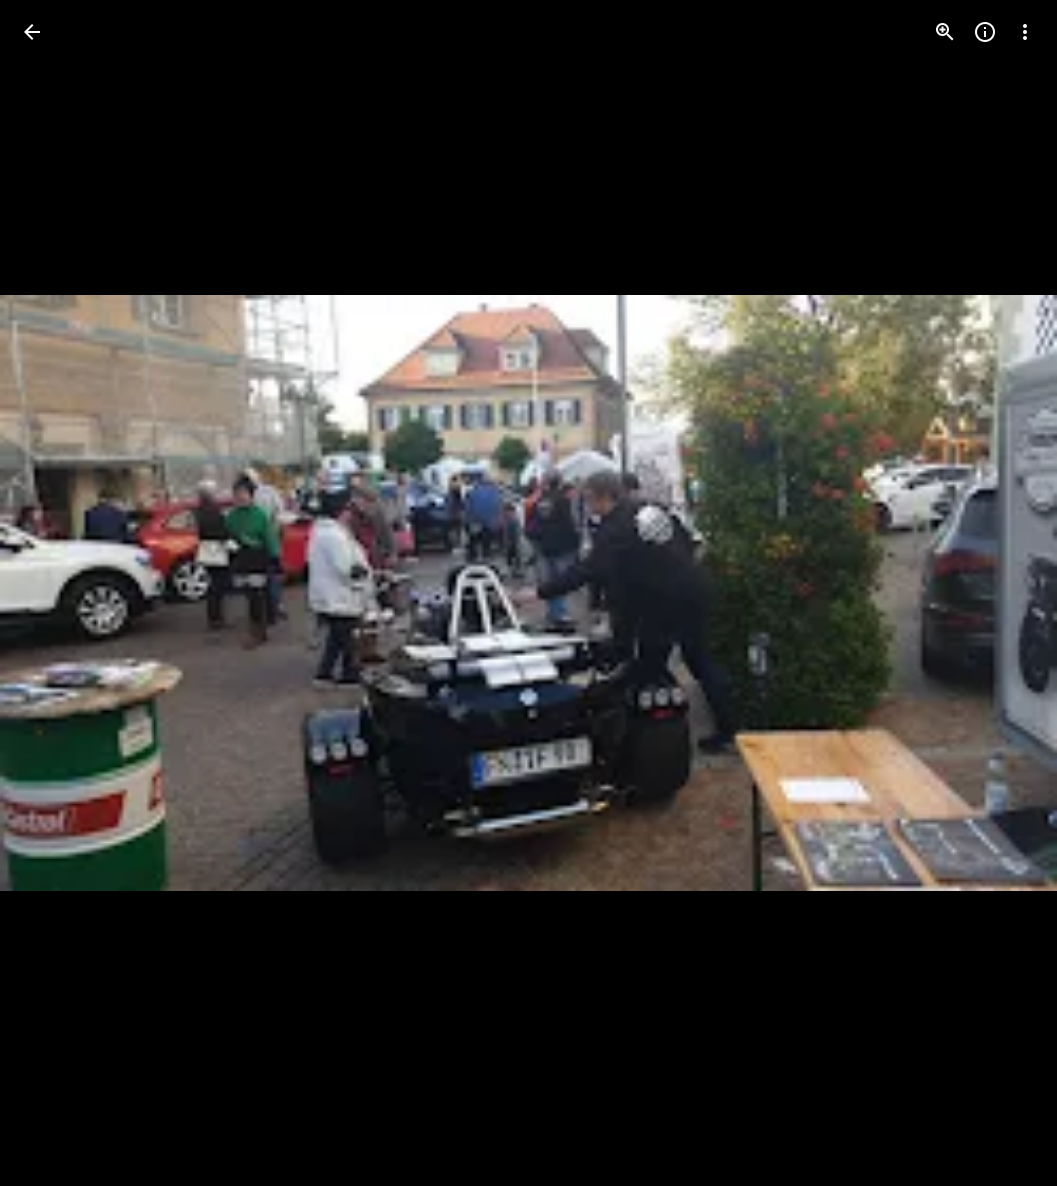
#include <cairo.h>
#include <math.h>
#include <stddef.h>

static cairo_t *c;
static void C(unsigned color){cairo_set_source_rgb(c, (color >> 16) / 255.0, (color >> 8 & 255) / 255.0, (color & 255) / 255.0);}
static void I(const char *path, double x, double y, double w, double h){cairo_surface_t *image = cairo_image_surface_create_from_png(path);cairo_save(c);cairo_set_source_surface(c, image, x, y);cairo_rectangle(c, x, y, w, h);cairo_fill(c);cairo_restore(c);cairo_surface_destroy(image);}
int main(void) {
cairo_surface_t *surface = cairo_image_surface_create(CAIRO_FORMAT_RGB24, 1057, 1186);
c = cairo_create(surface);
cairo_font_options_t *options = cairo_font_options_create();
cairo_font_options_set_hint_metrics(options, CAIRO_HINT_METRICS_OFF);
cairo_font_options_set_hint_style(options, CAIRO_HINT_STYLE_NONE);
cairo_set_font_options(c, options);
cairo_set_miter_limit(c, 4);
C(0x000000);
cairo_paint(c);
I("1.png",24,24,16,16);
I("2.png",936,23,18,18);
I("3.png",975,22,20,20);
I("4.png",1023,24,4,16);
I("5.png",0,295,1057,596);
cairo_surface_write_to_png(surface, "o.png");
cairo_font_options_destroy(options);
cairo_destroy(c);
cairo_surface_destroy(surface);
return 0;
}
